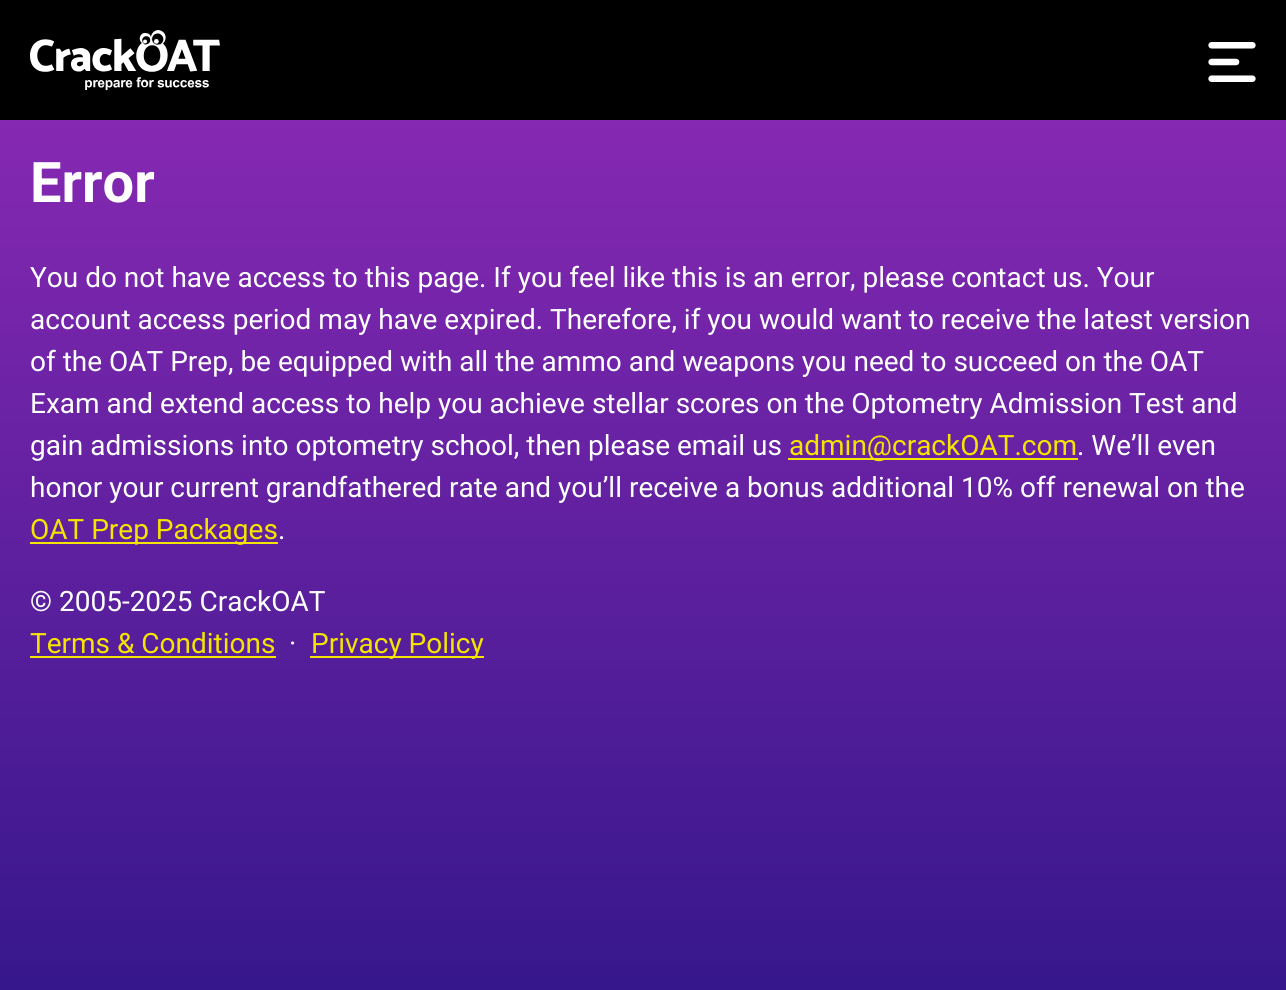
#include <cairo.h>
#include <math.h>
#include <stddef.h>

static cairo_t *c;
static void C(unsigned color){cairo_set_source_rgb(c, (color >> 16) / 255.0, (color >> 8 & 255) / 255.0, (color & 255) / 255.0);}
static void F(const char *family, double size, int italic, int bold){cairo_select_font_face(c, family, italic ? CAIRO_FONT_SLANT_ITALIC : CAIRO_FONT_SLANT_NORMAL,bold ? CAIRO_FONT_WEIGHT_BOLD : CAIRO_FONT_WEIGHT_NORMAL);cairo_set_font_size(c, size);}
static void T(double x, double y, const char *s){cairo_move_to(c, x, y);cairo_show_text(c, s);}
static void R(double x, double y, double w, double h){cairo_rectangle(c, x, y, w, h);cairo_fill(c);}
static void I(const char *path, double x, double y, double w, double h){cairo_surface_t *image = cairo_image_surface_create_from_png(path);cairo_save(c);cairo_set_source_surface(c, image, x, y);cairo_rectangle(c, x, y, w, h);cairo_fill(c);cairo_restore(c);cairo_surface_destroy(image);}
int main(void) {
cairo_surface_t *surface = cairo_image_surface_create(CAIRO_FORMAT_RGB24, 1286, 990);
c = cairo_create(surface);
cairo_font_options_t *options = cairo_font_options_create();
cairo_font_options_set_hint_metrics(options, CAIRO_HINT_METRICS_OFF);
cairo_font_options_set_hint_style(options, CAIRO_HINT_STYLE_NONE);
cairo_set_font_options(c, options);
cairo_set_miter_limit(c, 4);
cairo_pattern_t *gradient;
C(0xffffff);
cairo_paint(c);
gradient = cairo_pattern_create_linear(643,990,643,0);
cairo_pattern_add_color_stop_rgba(gradient,0,0.212,0.09,0.549,1);
cairo_pattern_add_color_stop_rgba(gradient,1,0.569,0.169,0.718,1);
cairo_set_source(c,gradient);
cairo_pattern_destroy(gradient);
R(0,120,1286,870);
C(0x000000);
R(0,0,1286,120);
I("1.png",30,30,190,60);
I("2.png",1208,42,48,40);
F("Roboto",56,0,1);
C(0xffffff);
T(30,202,"Error");
F("Roboto",28,0,0);
T(30,287,"You do not have access to this page. If you feel like this is an error, please contact us. Your");
T(30,329,"account access period may have expired. Therefore, if you would want to receive the latest version");
T(30,371,"of the OAT Prep, be equipped with all the ammo and weapons you need to succeed on the OAT");
T(30,413,"Exam and extend access to help you achieve stellar scores on the Optometry Admission Test and");
T(30,455,"gain admissions into optometry school, then please email us");
C(0xf5e400);
R(788,458,290,2);
T(789,455,"admin@crackOAT.com");
C(0xffffff);
T(1077,455,". We’ll even");
T(30,497,"honor your current grandfathered rate and you’ll receive a bonus additional 10% off renewal on the");
C(0xf5e400);
R(30,542,248,2);
T(30,539,"OAT Prep Packages");
C(0xffffff);
T(278,539,".");
T(30,611,"© 2005-2025 CrackOAT");
C(0xf5e400);
T(30,653,"Terms & Conditions");
R(30,656,246,2);
C(0xffffff);
T(289,653,"·");
C(0xf5e400);
R(310,656,174,2);
T(311,653,"Privacy Policy");
cairo_surface_write_to_png(surface, "o.png");
cairo_font_options_destroy(options);
cairo_destroy(c);
cairo_surface_destroy(surface);
return 0;
}
